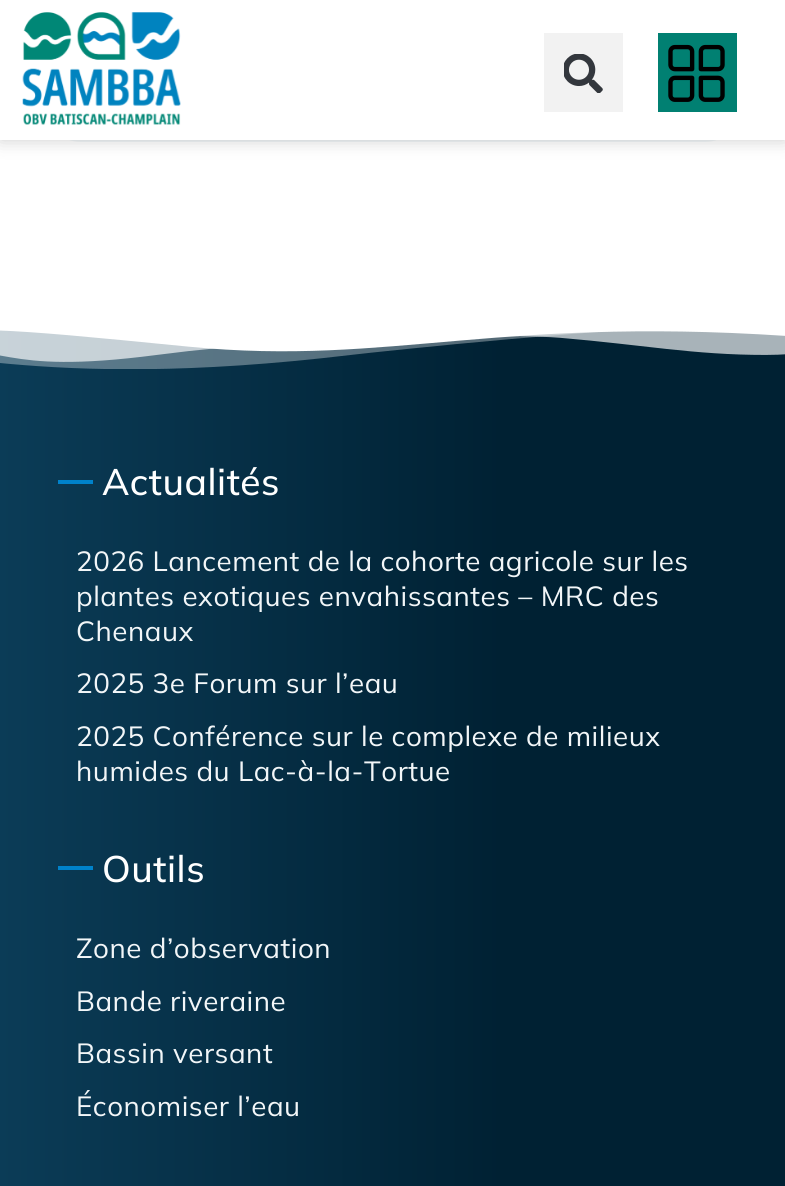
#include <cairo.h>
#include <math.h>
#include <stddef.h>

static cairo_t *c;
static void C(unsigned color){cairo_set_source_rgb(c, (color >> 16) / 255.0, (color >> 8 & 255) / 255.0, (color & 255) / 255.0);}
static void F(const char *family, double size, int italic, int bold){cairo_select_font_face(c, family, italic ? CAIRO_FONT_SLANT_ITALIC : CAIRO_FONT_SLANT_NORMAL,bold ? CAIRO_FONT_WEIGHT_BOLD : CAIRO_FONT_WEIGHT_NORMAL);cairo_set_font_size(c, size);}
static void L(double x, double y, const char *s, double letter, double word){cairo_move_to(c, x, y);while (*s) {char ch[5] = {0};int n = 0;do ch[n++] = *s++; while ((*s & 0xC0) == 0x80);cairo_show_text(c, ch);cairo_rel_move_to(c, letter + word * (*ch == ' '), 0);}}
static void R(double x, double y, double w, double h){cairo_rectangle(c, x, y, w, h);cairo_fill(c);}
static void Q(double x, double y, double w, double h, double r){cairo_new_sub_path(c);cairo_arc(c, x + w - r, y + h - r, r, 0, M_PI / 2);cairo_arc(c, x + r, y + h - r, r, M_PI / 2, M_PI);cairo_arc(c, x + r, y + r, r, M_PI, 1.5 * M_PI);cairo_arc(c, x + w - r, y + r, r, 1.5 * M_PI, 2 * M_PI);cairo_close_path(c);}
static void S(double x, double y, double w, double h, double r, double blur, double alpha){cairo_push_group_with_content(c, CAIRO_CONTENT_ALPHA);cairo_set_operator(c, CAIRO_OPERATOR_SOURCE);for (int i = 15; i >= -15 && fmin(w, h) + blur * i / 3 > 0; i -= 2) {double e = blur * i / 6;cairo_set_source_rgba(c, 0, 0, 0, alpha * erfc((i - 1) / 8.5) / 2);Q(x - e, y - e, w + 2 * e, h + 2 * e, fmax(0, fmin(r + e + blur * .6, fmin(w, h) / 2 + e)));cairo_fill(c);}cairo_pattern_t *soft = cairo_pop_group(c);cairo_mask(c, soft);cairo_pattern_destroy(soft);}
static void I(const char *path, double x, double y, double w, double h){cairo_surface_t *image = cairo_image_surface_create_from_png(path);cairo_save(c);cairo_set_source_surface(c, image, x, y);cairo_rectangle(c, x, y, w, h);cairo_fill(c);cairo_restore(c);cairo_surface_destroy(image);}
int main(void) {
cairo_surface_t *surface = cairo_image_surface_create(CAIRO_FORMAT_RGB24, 785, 1186);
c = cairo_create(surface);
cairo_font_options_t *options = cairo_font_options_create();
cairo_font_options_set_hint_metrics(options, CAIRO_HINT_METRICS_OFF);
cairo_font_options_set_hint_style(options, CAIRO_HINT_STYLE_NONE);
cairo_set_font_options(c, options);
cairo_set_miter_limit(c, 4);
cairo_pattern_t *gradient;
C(0xffffff);
cairo_paint(c);
C(0xf2f6f8);
Q(46,26,694,116,35);
cairo_fill(c);
C(0x000000);
S(0,0,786,140,0,9,.2);
C(0xffffff);
R(0,0,785,140);
I("1.png",22,12,159,113);
C(0xf2f2f2);
R(544,33,79,79);
I("2.png",564,54,39,39);
C(0x018072);
R(658,33,79,79);
I("3.png",668,44,57,58);
gradient = cairo_pattern_create_linear(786,1119,0,1119);
cairo_pattern_add_color_stop_rgba(gradient,.36,0,0.129,0.2,1);
cairo_pattern_add_color_stop_rgba(gradient,1,0.043,0.235,0.341,1);
cairo_set_source(c,gradient);
cairo_pattern_destroy(gradient);
R(0,330,785,856);
I("4.png",0,327,785,42);
C(0x0082ca);
R(58,480,35,4);
F("Mulish Medium",37,0,0);
C(0xffffff);
L(102,495,"Actualités",.55,0);
F("Mulish",27.75,0,0);
C(0xf2f6f8);
L(76,571,"2026 Lancement de la cohorte agricole sur les",.55,0);
L(76,606,"plantes exotiques envahissantes – MRC des",.55,0);
L(76,641,"Chenaux",.55,0);
L(76,693,"2025 3e Forum sur l’eau",.55,0);
L(76,746,"2025 Conférence sur le complexe de milieux",.55,0);
L(76,781,"humides du Lac-à-la-Tortue",.55,0);
C(0x0082ca);
R(58,866,35,4);
F("Mulish Medium",37,0,0);
C(0xffffff);
L(102,882,"Outils",.55,0);
F("Mulish",27.75,0,0);
C(0xf2f6f8);
L(76,958,"Zone d’observation",.55,0);
L(76,1011,"Bande riveraine",.55,0);
L(76,1063,"Bassin versant",.55,0);
L(76,1116,"Économiser l’eau",.55,0);
cairo_surface_write_to_png(surface, "o.png");
cairo_font_options_destroy(options);
cairo_destroy(c);
cairo_surface_destroy(surface);
return 0;
}
